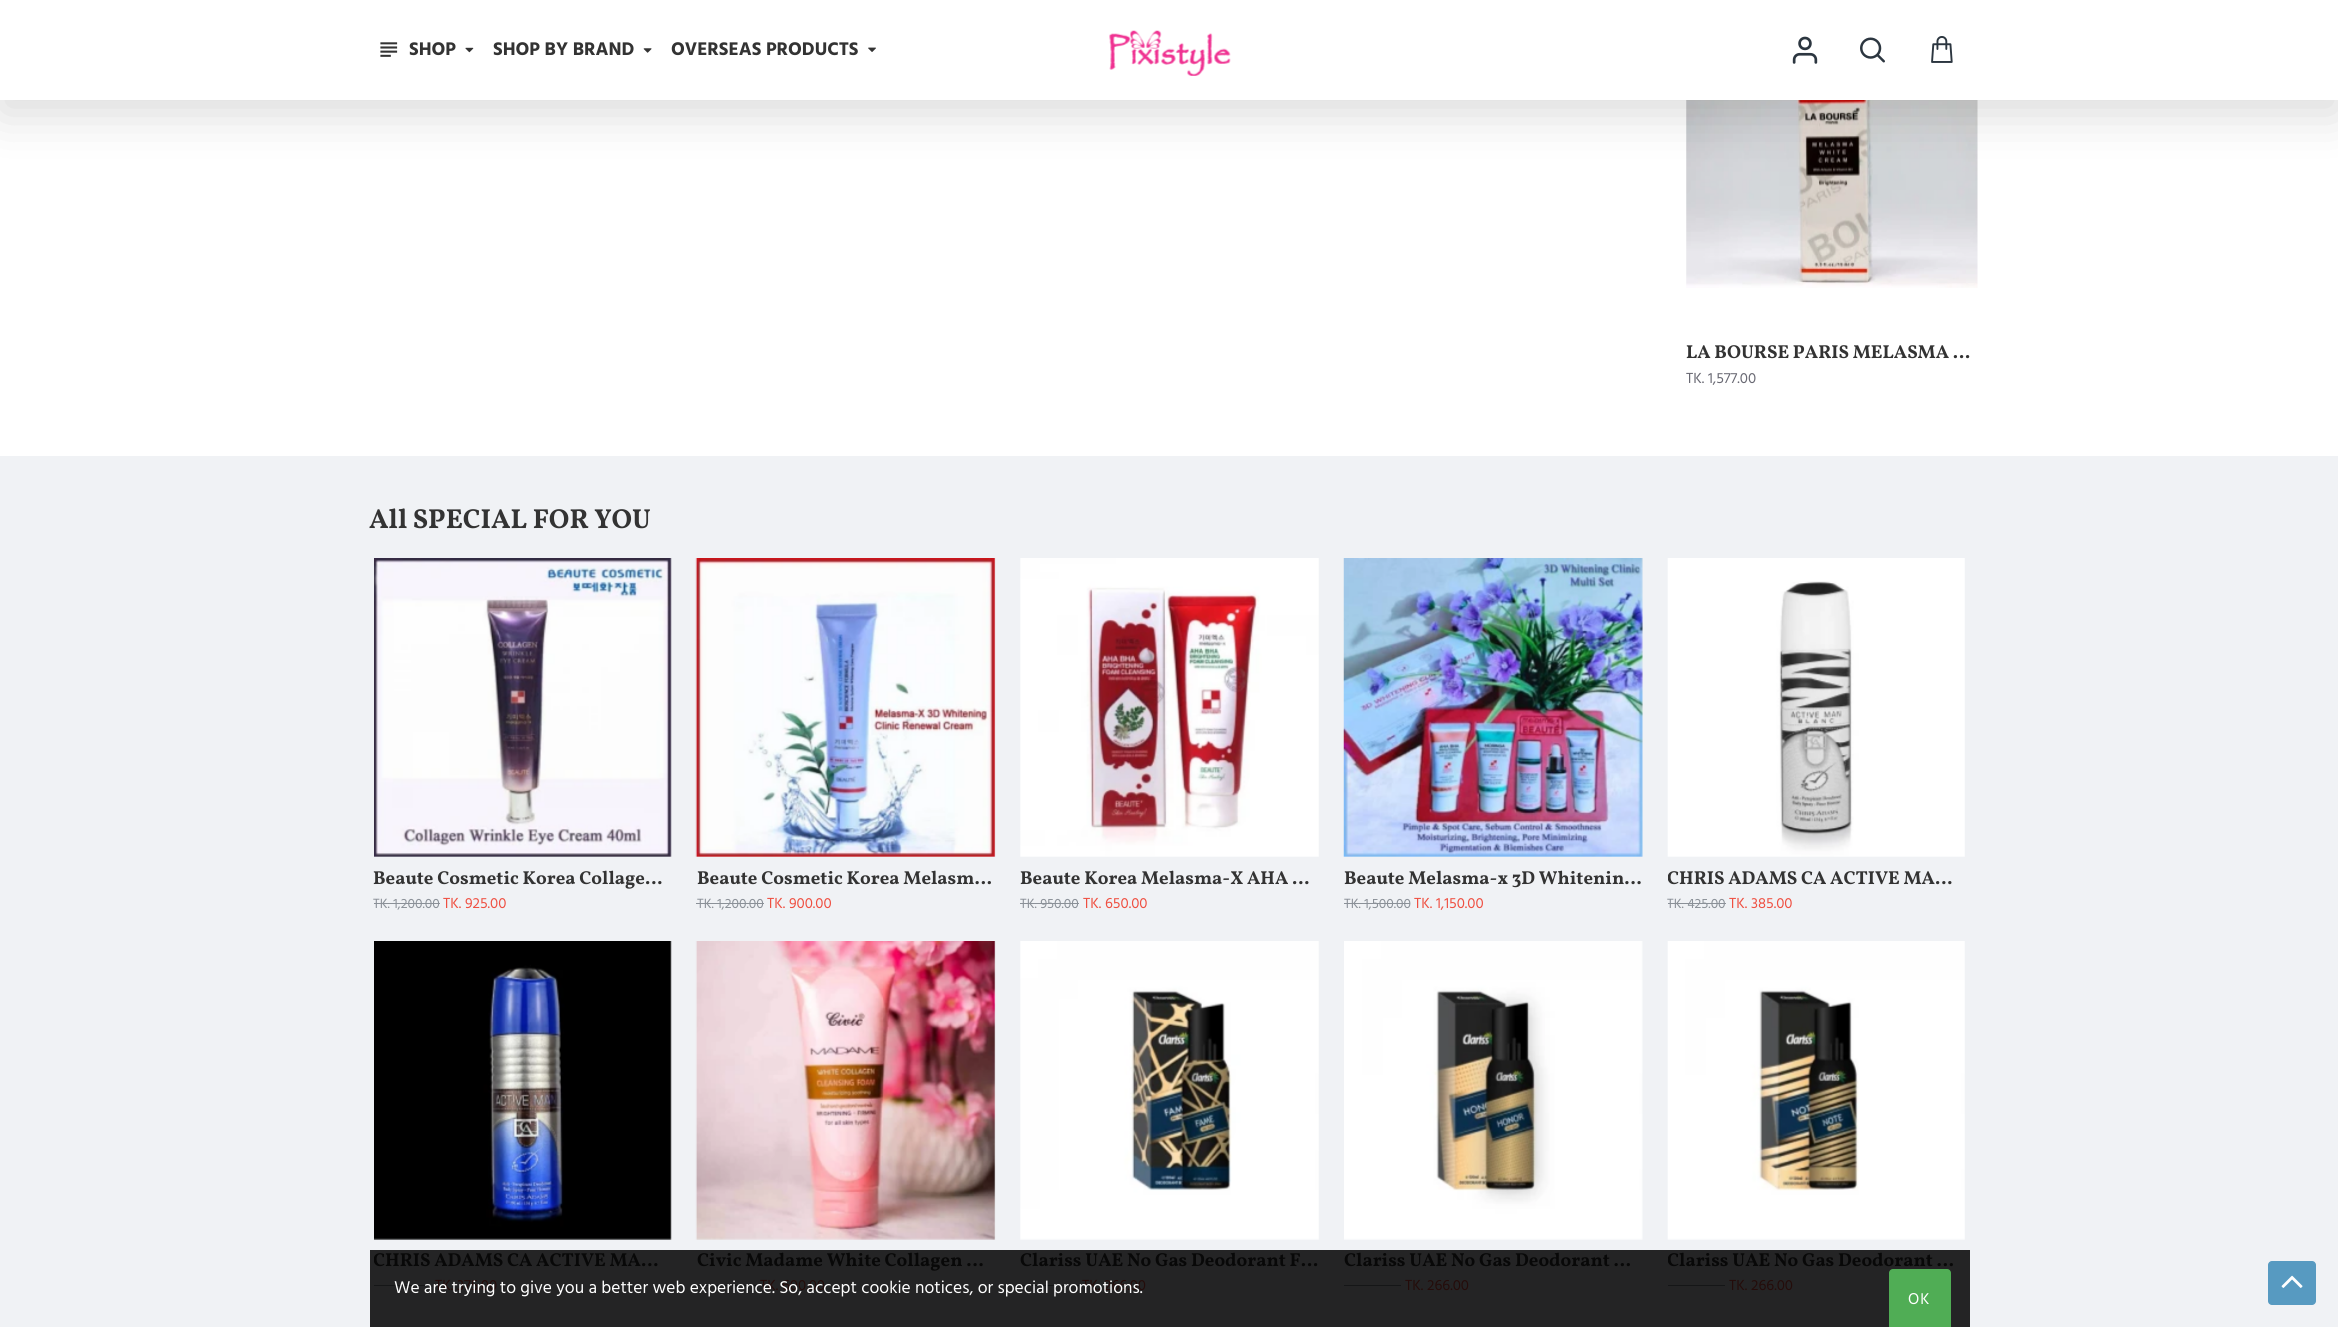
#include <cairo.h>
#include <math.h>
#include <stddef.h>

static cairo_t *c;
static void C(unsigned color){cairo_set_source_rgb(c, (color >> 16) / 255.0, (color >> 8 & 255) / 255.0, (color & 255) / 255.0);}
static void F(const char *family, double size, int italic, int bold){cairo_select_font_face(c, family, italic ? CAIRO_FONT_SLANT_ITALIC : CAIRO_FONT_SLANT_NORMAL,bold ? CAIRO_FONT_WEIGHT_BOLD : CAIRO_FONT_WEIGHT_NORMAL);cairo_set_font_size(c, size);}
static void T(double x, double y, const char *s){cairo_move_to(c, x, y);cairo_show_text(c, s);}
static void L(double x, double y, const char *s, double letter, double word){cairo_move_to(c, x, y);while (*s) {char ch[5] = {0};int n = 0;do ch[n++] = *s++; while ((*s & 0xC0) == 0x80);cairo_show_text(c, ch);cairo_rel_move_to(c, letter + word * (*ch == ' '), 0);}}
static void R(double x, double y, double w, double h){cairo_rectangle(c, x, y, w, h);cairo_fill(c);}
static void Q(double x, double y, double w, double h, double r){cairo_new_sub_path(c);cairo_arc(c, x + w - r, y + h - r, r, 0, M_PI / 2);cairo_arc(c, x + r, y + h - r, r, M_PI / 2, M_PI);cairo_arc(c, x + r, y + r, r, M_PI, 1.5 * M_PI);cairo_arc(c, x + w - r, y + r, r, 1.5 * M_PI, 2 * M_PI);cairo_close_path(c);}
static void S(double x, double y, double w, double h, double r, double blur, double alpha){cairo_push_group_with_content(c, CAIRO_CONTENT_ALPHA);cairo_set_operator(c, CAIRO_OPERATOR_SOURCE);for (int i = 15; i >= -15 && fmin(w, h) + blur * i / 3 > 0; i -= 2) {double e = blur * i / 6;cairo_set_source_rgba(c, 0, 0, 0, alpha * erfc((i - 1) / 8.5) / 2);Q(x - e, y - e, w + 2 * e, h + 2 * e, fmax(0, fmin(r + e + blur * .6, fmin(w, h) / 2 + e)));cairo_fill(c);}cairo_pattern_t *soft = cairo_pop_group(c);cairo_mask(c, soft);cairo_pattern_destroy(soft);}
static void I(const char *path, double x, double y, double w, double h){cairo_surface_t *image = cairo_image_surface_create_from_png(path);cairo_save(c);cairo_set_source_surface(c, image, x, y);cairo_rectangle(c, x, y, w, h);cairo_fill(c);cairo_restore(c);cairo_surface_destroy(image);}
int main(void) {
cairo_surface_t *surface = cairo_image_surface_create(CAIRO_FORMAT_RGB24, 2338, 1327);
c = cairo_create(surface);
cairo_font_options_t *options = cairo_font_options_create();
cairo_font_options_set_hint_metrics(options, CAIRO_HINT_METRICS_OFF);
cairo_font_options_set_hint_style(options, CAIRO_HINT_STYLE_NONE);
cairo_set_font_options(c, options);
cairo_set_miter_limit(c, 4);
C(0xffffff);
cairo_paint(c);
I("9.png",1686,100,292,188);
C(0x000000);
S(0,-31,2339,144,0,25,.15);
C(0xffffff);
R(0,0,2338,100);
I("1.png",380,42,18,15);
F("Hind Madurai",18.75,0,1);
C(0x333333);
T(409,55,"SHOP");
I("2.png",465,47,9,6);
T(493,55,"SHOP BY BRAND");
I("3.png",643,48,9,5);
T(671,55,"OVERSEAS PRODUCTS");
I("4.png",868,47,8,5);
I("5.png",1109,30,122,46);
I("6.png",1792,36,26,28);
I("7.png",1860,37,25,26);
I("8.png",1931,36,22,27);
F("Vollkorn",18.75,0,1);
T(1686,358,"LA BOURSE PARIS MELASMA …");
F("Hind Madurai",15,0,0);
C(0x696973);
T(1686,383,"TK. 1,577.00");
C(0xf0f2f5);
R(0,456,2338,871);
C(0x242425);
R(370,1250,1600,77);
F("Vollkorn",27.5,0,1);
C(0x333333);
T(369,528,"All SPECIAL FOR YOU");
I("10.png",374,558,298,299);
F("Vollkorn",18.75,0,1);
T(373,884,"Beaute Cosmetic Korea Collage…");
F("Hind Madurai",13.75,0,0);
C(0x8b9198);
T(373,908,"TK. 1,200.00");
R(374,903,66,1);
F("Hind Madurai",15,0,0);
C(0xef5042);
T(443,908,"TK. 925.00");
I("11.png",695,558,301,299);
F("Vollkorn",18.75,0,1);
C(0x333333);
T(697,884,"Beaute Cosmetic Korea Melasm…");
F("Hind Madurai",13.75,0,0);
C(0x8b9198);
T(697,908,"TK. 1,200.00");
R(696,903,68,1);
F("Hind Madurai",15,0,0);
C(0xef5042);
T(767,908,"TK. 900.00");
I("12.png",1020,558,299,299);
F("Vollkorn",18.75,0,1);
C(0x333333);
T(1020,884,"Beaute Korea Melasma-X AHA …");
F("Hind Madurai",13.75,0,0);
C(0x8b9198);
T(1020,908,"TK. 950.00");
R(1020,903,59,1);
F("Hind Madurai",15,0,0);
C(0xef5042);
T(1083,908,"TK. 650.00");
I("13.png",1343,558,300,299);
F("Vollkorn",18.75,0,1);
C(0x333333);
T(1344,884,"Beaute Melasma-x 3D Whitenin…");
F("Hind Madurai",13.75,0,0);
C(0x8b9198);
T(1344,908,"TK. 1,500.00");
R(1344,903,66,1);
F("Hind Madurai",15,0,0);
C(0xef5042);
T(1414,908,"TK. 1,150.00");
I("14.png",1667,558,298,299);
cairo_save(c);
cairo_rectangle(c,1668,868,297,25);
cairo_clip(c);
F("Vollkorn",18.75,0,1);
C(0x333333);
T(1667,884,"CHRIS ADAMS CA ACTIVE MA…");
cairo_restore(c);
F("Hind Madurai",13.75,0,0);
C(0x8b9198);
T(1667,908,"TK. 425.00");
R(1668,903,58,1);
F("Hind Madurai",15,0,0);
C(0xef5042);
T(1729,908,"TK. 385.00");
I("15.png",374,941,298,299);
cairo_save(c);
cairo_rectangle(c,374,1250,297,24);
cairo_clip(c);
F("Vollkorn",18.75,0,1);
C(0x080808);
T(373,1266,"CHRIS ADAMS CA ACTIVE MA…");
cairo_restore(c);
C(0x151617);
R(374,1285,57,1);
C(0x240c0a);
T(435,1290,"TK. 375.00");
I("16.png",695,941,301,299);
F("Vollkorn",18.75,0,1);
C(0x080808);
T(697,1266,"Civic Madame White Collagen …");
C(0x151617);
R(696,1285,60,1);
F("Hind Madurai",15,0,0);
C(0x240c0a);
T(760,1290,"TK. 600.00");
I("17.png",1020,941,299,299);
F("Vollkorn",18.75,0,1);
C(0x080808);
T(1020,1266,"Clariss UAE No Gas Deodorant F…");
C(0x151617);
R(1020,1285,59,1);
F("Hind Madurai",15,0,0);
C(0x240c0a);
T(1082,1290,"TK. 266.00");
I("18.png",1344,941,299,299);
F("Vollkorn",18.75,0,1);
C(0x080808);
T(1344,1266,"Clariss UAE No Gas Deodorant …");
C(0x151617);
R(1344,1285,57,1);
F("Hind Madurai",15,0,0);
C(0x240c0a);
T(1405,1290,"TK. 266.00");
I("19.png",1667,941,298,299);
cairo_save(c);
cairo_rectangle(c,1668,1250,297,24);
cairo_clip(c);
F("Vollkorn",18.75,0,1);
C(0x080808);
T(1667,1266,"Clariss UAE No Gas Deodorant …");
cairo_restore(c);
C(0x151617);
R(1668,1285,57,1);
C(0x240c0a);
T(1729,1290,"TK. 266.00");
C(0x579ac1);
Q(2268,1261,48,44,4);
cairo_fill(c);
I("20.png",2281,1275,22,13);
F("Hind Madurai",17.5,0,0);
C(0xffffff);
T(394,1293,"We are trying to give you a better web experience. So, accept cookie notices, or special promotions.");
C(0x50ad55);
Q(1889,1269,62,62,4);
cairo_fill(c);
F("Hind Madurai",16,0,0);
C(0xffffff);
L(1908,1304,"OK",1,0);
cairo_surface_write_to_png(surface, "o.png");
cairo_font_options_destroy(options);
cairo_destroy(c);
cairo_surface_destroy(surface);
return 0;
}
